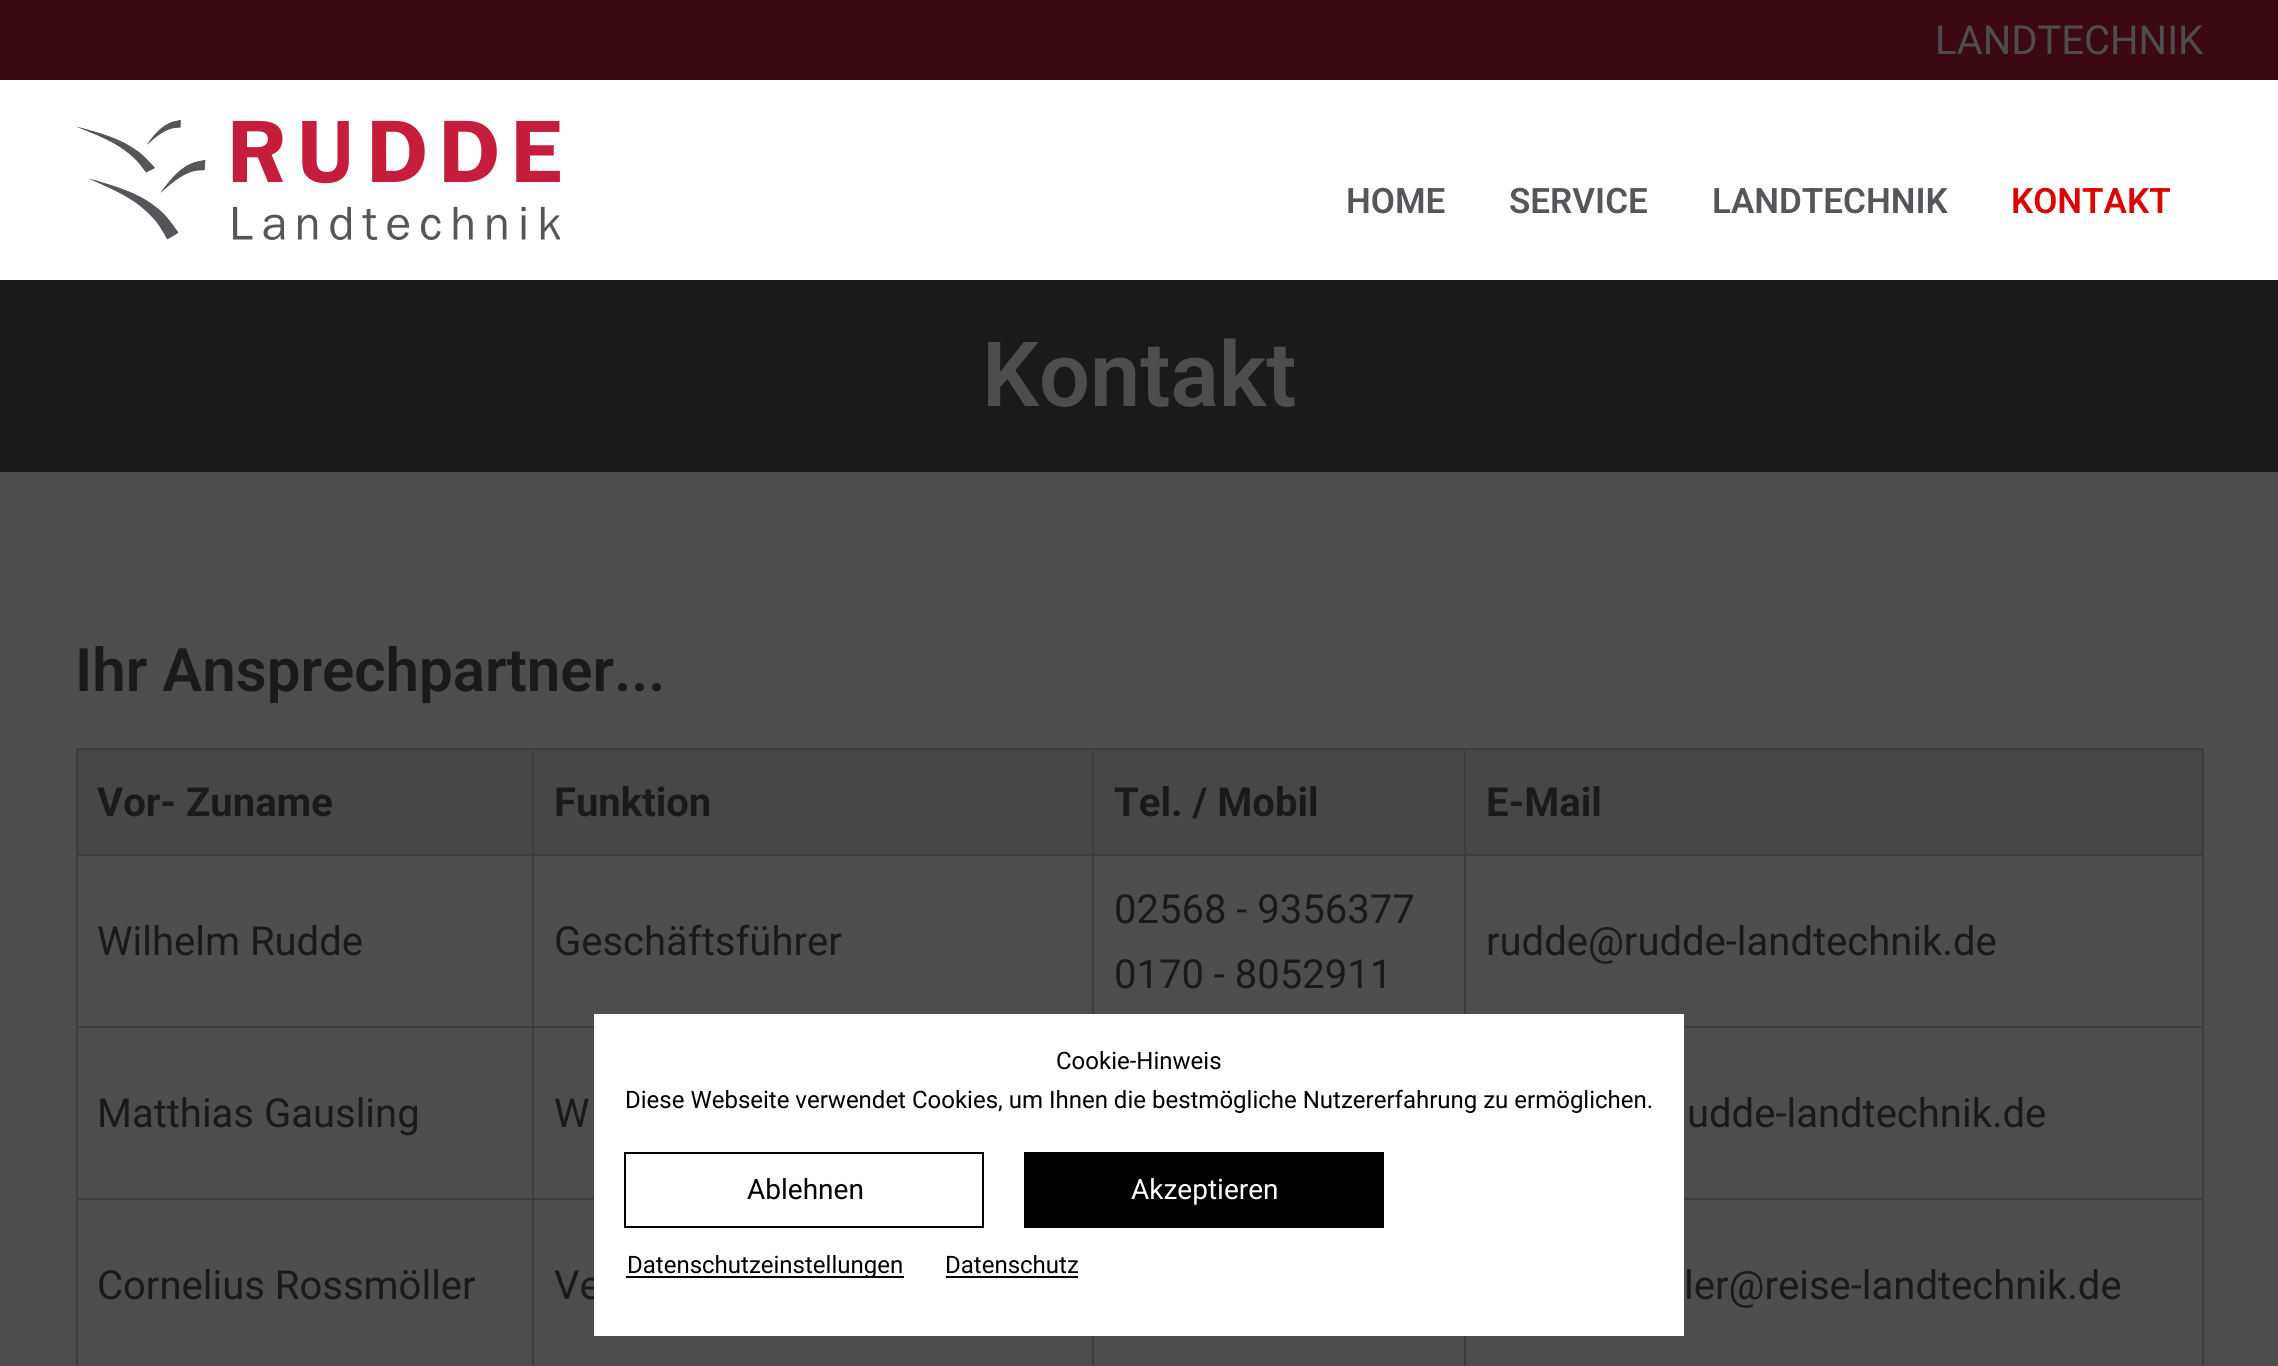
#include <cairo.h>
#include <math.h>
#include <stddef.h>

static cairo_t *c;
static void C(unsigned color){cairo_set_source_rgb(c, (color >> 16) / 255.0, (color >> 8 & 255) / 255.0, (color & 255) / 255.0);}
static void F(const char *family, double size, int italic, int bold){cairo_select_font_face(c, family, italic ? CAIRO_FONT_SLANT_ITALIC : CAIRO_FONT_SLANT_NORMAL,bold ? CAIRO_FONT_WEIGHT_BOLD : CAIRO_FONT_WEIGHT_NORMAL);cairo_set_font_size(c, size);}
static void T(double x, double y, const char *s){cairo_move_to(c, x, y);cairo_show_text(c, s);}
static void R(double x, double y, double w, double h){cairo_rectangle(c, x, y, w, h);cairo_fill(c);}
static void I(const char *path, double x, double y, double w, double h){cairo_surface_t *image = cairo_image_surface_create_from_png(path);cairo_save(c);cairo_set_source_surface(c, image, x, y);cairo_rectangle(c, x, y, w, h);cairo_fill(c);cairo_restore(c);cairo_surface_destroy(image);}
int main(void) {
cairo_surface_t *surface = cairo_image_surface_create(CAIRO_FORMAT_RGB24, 2278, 1366);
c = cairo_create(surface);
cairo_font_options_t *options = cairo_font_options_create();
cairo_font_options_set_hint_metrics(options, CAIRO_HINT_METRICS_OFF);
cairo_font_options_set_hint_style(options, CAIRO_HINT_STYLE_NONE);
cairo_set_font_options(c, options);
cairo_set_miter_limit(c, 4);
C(0x4d4d4d);
cairo_paint(c);
C(0x3b0912);
R(0,0,2278,80);
F("Roboto",40,0,0);
C(0x4d4d4d);
T(1935,54,"LANDTECHNIK");
C(0xffffff);
R(0,80,2278,200);
I("1.png",76,120,484,120);
F("Roboto SemiBold",35,0,0);
C(0x54565a);
T(1346,213,"HOME");
T(1509,213,"SERVICE");
T(1712,213,"LANDTECHNIK");
C(0xd90604);
T(2011,213,"KONTAKT");
C(0x191a1b);
R(0,280,2278,192);
F("Roboto SemiBold",90,0,0);
C(0x4d4d4d);
T(982,406,"Kontakt");
F("Roboto SemiBold",60,0,0);
C(0x191a1b);
T(75,691,"Ihr Ansprechpartner...");
C(0x3d3d3d);
R(76,748,2128,2);
R(76,748,2,618);
C(0x474747);
R(78,750,2124,104);
C(0x3d3d3d);
R(532,750,2,616);
R(78,854,456,2);
F("Roboto",40,0,1);
C(0x191a1b);
T(97,816,"Vor- Zuname");
C(0x3d3d3d);
R(1092,750,2,264);
R(534,854,560,2);
C(0x191a1b);
T(554,816,"Funktion");
C(0x3d3d3d);
R(1464,750,2,264);
R(1094,854,372,2);
C(0x191a1b);
T(1114,816,"Tel. / Mobil");
C(0x3d3d3d);
R(2202,750,2,616);
R(1466,854,738,2);
C(0x191a1b);
T(1486,816,"E-Mail");
C(0x3d3d3d);
R(78,1026,516,2);
F("Roboto",40,0,0);
C(0x191a1b);
T(97,955,"Wilhelm Rudde");
T(554,955,"Geschäftsführer");
T(1114,923,"02568 - 9356377");
T(1114,988,"0170 - 8052911");
C(0x3d3d3d);
R(1684,1026,520,2);
C(0x191a1b);
T(1486,955,"rudde@rudde-landtechnik.de");
C(0x3d3d3d);
R(78,1198,516,2);
C(0x191a1b);
T(97,1127,"Matthias Gausling");
T(554,1127,"W");
C(0x3d3d3d);
R(1684,1198,520,2);
C(0x191a1b);
T(1687,1127,"udde-landtechnik.de");
T(97,1299,"Cornelius Rossmöller");
C(0x3d3d3d);
R(1092,1336,2,30);
C(0x191a1b);
T(554,1299,"Ve");
T(1684,1299,"ler@reise-landtechnik.de");
C(0x3d3d3d);
R(1464,1336,2,30);
C(0xffffff);
R(594,1014,1090,322);
F("Roboto",24,0,0);
C(0x000000);
T(1056,1069,"Cookie-Hinweis");
T(625,1108,"Diese Webseite verwendet Cookies, um Ihnen die bestmögliche Nutzererfahrung zu ermöglichen.");
cairo_rectangle(c,625,1153,358,74);
cairo_stroke(c);
F("Roboto",28,0,0);
T(747,1199,"Ablehnen");
R(1024,1152,360,76);
C(0xffffff);
T(1131,1199,"Akzeptieren");
C(0x000000);
R(626,1276,278,2);
F("Roboto",24,0,0);
T(627,1273,"Datenschutzeinstellungen");
T(945,1273,"Datenschutz");
R(946,1276,132,2);
cairo_surface_write_to_png(surface, "o.png");
cairo_font_options_destroy(options);
cairo_destroy(c);
cairo_surface_destroy(surface);
return 0;
}
